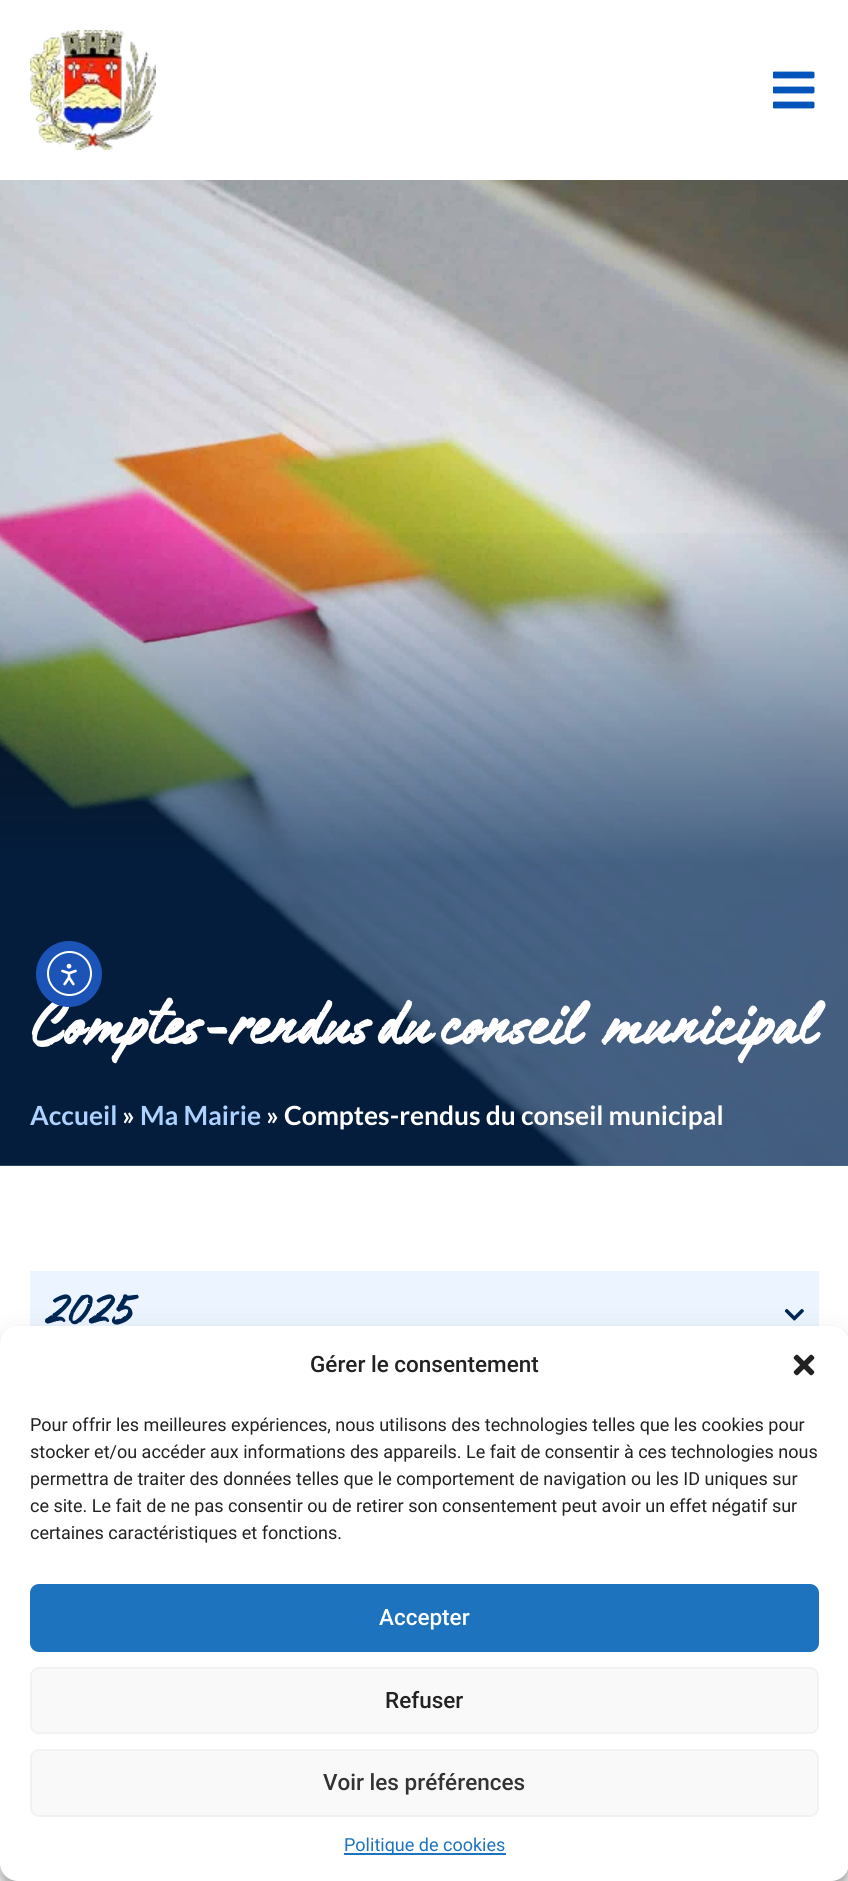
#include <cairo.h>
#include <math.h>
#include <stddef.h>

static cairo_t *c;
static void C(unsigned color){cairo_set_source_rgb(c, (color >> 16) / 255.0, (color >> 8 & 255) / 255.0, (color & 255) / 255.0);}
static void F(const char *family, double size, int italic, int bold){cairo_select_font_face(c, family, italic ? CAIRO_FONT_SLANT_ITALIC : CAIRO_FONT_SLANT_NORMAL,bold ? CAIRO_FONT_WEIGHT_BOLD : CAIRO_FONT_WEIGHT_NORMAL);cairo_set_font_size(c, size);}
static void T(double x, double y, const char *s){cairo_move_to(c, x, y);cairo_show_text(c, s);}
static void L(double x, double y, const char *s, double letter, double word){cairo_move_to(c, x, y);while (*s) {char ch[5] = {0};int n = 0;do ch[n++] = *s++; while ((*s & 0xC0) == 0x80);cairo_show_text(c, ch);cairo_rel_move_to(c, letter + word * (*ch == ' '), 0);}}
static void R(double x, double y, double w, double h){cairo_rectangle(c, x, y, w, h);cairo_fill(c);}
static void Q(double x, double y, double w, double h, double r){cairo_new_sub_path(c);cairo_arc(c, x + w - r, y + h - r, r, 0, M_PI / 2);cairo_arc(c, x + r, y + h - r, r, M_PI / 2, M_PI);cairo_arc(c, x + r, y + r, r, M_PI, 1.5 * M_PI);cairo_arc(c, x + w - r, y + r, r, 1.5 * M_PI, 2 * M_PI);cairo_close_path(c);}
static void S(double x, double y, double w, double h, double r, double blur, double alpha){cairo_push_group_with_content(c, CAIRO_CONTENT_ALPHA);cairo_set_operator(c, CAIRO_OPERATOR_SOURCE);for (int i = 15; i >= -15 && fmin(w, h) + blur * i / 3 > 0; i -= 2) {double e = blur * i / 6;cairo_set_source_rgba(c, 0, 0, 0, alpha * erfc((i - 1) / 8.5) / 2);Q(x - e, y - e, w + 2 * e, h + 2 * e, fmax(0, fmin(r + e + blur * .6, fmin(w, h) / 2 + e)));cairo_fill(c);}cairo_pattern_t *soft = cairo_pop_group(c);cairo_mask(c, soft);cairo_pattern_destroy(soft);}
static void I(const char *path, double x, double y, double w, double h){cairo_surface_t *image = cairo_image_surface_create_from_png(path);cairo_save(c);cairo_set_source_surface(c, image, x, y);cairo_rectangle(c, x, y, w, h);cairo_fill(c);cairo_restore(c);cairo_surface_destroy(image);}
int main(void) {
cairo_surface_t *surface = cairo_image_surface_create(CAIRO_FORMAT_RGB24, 848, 1881);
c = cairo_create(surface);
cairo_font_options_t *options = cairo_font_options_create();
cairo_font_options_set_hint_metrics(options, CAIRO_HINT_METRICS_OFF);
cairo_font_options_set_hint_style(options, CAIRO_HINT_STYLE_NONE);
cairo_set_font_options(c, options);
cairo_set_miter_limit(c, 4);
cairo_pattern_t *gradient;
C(0xffffff);
cairo_paint(c);
I("1.png",30,30,126,120);
I("2.png",773,71,42,38);
I("4.png",0,180,848,986);
gradient = cairo_pattern_create_linear(424,37,425,1166);
cairo_pattern_add_color_stop_rgba(gradient,.43,0,0.149,0.329,0);
cairo_pattern_add_color_stop_rgba(gradient,.73,0,0.149,0.329,.67);
cairo_set_source(c,gradient);
cairo_pattern_destroy(gradient);
R(0,533,848,633);
F("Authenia",72,0,1);
C(0xffffff);
L(30,1044,"Comptes-rendus du conseil",0,-4);
L(603,1044,"municipal",0,-4);
C(0x1b53b7);
cairo_new_path(c);
cairo_arc(c,69,974,33,0,2 * M_PI);
cairo_fill(c);
cairo_arc(c,69.5,973.5,21.5,0,2 * M_PI);
C(0xffffff);
cairo_stroke(c);
I("3.png",61,963,16,23);
F("Lato",26.4,0,1);
C(0xadd2ff);
T(30,1125,"Accueil");
C(0xffffff);
T(122,1125,"»");
C(0xadd2ff);
T(140,1125,"Ma Mairie");
C(0xffffff);
T(266,1125,"» Comptes-rendus du conseil municipal");
C(0xebf4ff);
R(30,1271,789,55);
F("Authenia",48,0,1);
C(0x002654);
T(45,1324,"2025");
I("5.png",785,1308,19,13);
C(0x000000);
S(0,1335,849,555,18,4.5,.23);
S(0,1341,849,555,18,15,.19);
C(0xffffff);
Q(0,1326,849,555,18);
cairo_fill(c);
F("Roboto Medium",22.5,0,0);
C(0x222222);
T(310,1372,"Gérer le consentement");
I("6.png",793,1354,22,22);
F("Roboto",18,0,0);
T(30,1431,"Pour offrir les meilleures expériences, nous utilisons des technologies telles que les cookies pour");
T(30,1458,"stocker et/ou accéder aux informations des appareils. Le fait de consentir à ces technologies nous");
T(30,1485,"permettra de traiter des données telles que le comportement de navigation ou les ID uniques sur");
T(30,1512,"ce site. Le fait de ne pas consentir ou de retirer son consentement peut avoir un effet négatif sur");
T(30,1539,"certaines caractéristiques et fonctions.");
C(0x1e73be);
Q(31,1585,787,66,8);
cairo_fill_preserve(c);
cairo_stroke(c);
F("Roboto Medium",22.5,0,0);
C(0xffffff);
T(379,1625,"Accepter");
C(0xf9f9f9);
Q(31,1668,787,65,8);
cairo_fill_preserve(c);
C(0xf2f2f2);
cairo_stroke(c);
C(0x222222);
T(385,1708,"Refuser");
C(0xf9f9f9);
Q(31,1750,787,66,8);
cairo_fill_preserve(c);
C(0xf2f2f2);
cairo_stroke(c);
C(0x333333);
T(323,1790,"Voir les préférences");
C(0x1e73be);
R(344,1853,162,2);
F("Roboto",18,0,0);
T(344,1851,"Politique de cookies");
cairo_surface_write_to_png(surface, "o.png");
cairo_font_options_destroy(options);
cairo_destroy(c);
cairo_surface_destroy(surface);
return 0;
}
